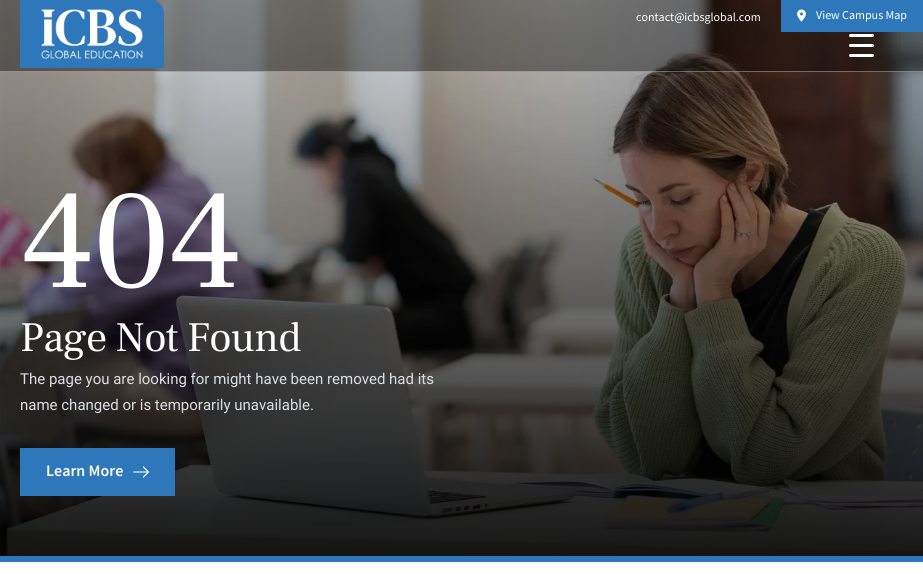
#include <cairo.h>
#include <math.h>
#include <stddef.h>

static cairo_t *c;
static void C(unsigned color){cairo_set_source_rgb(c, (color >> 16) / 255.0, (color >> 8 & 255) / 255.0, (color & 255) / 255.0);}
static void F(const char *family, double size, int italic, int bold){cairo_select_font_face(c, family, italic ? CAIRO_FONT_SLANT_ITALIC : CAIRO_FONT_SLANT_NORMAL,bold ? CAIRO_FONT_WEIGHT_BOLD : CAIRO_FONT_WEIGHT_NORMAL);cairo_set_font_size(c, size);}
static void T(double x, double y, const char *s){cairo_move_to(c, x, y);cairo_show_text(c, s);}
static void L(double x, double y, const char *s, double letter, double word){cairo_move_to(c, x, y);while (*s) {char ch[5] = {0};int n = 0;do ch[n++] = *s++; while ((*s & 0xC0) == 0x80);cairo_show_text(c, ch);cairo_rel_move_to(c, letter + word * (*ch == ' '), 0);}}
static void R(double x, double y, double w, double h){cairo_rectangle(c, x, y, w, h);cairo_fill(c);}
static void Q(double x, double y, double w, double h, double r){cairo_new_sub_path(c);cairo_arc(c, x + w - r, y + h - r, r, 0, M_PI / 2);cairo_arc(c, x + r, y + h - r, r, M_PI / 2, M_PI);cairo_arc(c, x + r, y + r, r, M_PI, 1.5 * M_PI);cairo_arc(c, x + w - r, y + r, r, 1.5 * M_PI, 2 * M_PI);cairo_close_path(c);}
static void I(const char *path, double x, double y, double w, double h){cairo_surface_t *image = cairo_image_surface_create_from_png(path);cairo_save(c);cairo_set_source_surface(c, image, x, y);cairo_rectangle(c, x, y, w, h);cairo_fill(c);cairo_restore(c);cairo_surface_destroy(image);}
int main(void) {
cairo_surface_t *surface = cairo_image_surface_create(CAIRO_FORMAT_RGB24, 923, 574);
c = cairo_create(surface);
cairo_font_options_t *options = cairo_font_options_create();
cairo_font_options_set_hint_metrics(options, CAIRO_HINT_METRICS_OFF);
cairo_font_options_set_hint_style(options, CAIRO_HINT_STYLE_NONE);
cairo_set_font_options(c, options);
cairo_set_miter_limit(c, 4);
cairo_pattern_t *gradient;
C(0xffffff);
cairo_paint(c);
I("3.png",0,0,923,556);
gradient = cairo_pattern_create_linear(461,-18,462,556);
cairo_pattern_add_color_stop_rgba(gradient,0,0,0,0,.1);
cairo_pattern_add_color_stop_rgba(gradient,1,0,0,0,.9);
cairo_set_source(c,gradient);
cairo_pattern_destroy(gradient);
R(0,0,923,556);
cairo_set_source_rgba(c,0,0,0,0.4);
R(0,0,923,72);
cairo_set_source_rgba(c,1,1,1,0.35);
R(0,71,923,1);
I("1.png",20,0,144,68);
F("Mada",12,0,0);
C(0xffffff);
T(636,21,"contact@icbsglobal.com");
C(0x2e77ba);
R(781,0,142,32);
I("2.png",797,9,9,13);
C(0xffffff);
T(816,19,"View Campus Map");
C(0x2e77ba);
R(0,556,923,6);
F("Frank Ruhl Libre",140,0,0);
C(0xffffff);
L(20,287,"404",-3,0);
F("Frank Ruhl Libre",42,0,0);
L(20,351,"Page Not Found",-.8,0);
F("Roboto",15,0,0);
C(0xdbdfe3);
T(20,384,"The page you are looking for might have been removed had its");
T(20,410,"name changed or is temporarily unavailable.");
C(0x2e77ba);
R(20,448,155,48);
F("Mada SemiBold",16,0,0);
C(0xffffff);
T(46,476,"Learn More");
I("4.png",133,466,16,12);
Q(849,44,25,3,1.5);
cairo_fill(c);
Q(849,34,25,3,1.5);
cairo_fill(c);
Q(849,54,25,3,1.5);
cairo_fill(c);
cairo_surface_write_to_png(surface, "o.png");
cairo_font_options_destroy(options);
cairo_destroy(c);
cairo_surface_destroy(surface);
return 0;
}
